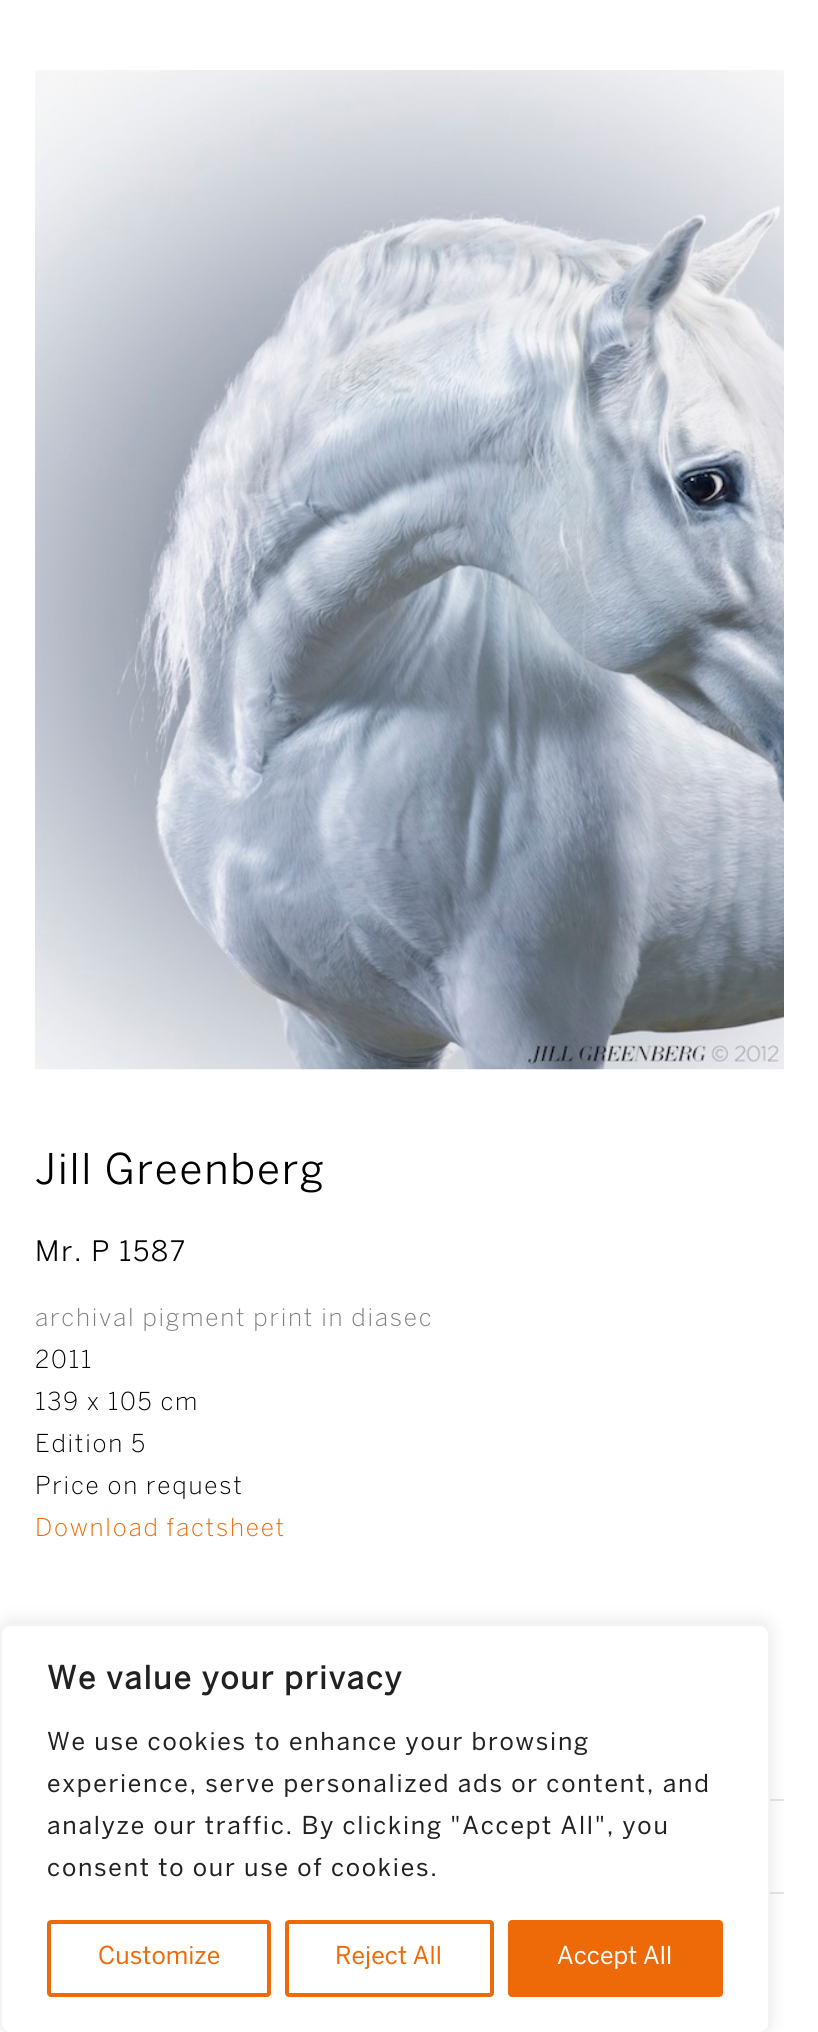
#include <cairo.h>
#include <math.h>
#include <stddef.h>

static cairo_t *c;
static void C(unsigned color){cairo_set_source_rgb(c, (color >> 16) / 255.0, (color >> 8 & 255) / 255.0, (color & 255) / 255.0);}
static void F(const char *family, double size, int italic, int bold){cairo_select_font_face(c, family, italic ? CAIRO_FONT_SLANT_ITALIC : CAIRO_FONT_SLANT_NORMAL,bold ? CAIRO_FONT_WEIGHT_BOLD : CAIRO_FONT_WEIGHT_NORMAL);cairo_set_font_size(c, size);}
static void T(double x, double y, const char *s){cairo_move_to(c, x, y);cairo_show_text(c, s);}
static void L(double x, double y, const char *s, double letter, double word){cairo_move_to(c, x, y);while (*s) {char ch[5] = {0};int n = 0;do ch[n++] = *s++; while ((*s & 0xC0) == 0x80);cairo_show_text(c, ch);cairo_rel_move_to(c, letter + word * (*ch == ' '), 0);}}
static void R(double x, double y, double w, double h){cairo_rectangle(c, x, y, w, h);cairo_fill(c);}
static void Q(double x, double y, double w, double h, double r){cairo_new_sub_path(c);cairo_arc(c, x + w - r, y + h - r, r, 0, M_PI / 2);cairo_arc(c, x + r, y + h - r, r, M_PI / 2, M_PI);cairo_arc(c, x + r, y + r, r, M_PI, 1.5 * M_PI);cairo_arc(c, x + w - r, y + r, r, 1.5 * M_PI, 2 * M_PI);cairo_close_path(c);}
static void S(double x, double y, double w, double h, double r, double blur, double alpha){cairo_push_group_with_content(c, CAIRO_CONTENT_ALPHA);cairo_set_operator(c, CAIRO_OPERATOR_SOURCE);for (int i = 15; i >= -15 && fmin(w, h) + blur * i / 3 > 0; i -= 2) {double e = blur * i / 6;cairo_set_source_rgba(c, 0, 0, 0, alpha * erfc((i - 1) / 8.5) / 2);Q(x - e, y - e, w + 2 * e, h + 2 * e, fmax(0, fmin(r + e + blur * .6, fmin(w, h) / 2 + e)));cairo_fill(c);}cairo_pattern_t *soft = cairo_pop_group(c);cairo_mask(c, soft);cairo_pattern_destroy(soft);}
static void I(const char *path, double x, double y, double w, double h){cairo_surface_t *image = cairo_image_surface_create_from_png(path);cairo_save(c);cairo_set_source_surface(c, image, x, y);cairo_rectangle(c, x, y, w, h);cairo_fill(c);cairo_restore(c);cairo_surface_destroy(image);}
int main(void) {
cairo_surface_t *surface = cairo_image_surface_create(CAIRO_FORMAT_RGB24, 818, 2032);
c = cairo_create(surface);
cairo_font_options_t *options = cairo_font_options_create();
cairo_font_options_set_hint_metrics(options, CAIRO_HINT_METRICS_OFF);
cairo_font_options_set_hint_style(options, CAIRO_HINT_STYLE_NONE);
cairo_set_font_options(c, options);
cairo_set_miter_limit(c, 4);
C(0xffffff);
cairo_paint(c);
I("1.png",35,70,749,1000);
F("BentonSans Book",42,0,0);
C(0x000000);
L(35,1184,"Jill Greenberg",1.75,0);
F("BentonSans Book",28,0,0);
L(35,1261,"Mr. P 1587",1.75,0);
F("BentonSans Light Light",24.5,0,0);
C(0x7e7e7e);
L(35,1326,"archival pigment print in diasec",1.75,0);
C(0x000000);
L(35,1368,"2011",1.75,0);
L(35,1410,"139 x 105 cm",1.75,0);
L(35,1452,"Edition 5",1.75,0);
L(35,1494,"Price on request",1.75,0);
C(0xee6a08);
L(35,1536,"Download factsheet",1.75,0);
C(0xe4e4e8);
R(770,1799,14,2);
R(770,1892,14,2);
C(0xacabab);
S(0,1622,770,410,11,9,.3);
C(0xffffff);
Q(1,1625,768,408,10);
cairo_fill_preserve(c);
C(0xf4f4f4);
cairo_stroke(c);
F("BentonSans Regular",31.5,0,1);
C(0x212121);
L(47,1689,"We value your privacy",1.75,0);
F("BentonSans Regular",24.5,0,0);
L(47,1750,"We use cookies to enhance your browsing",1.75,0);
L(47,1792,"experience, serve personalized ads or content, and",1.75,0);
L(47,1834,"analyze our traffic. By clicking \"Accept All\", you",1.75,0);
L(47,1876,"consent to our use of cookies.",1.75,0);
Q(49,1922,220,73,2);
C(0xee6a08);
cairo_set_line_width(c,4);
cairo_stroke(c);
T(98,1964,"Customize");
Q(287,1922,205,73,2);
cairo_stroke(c);
T(335,1964,"Reject All");
Q(510,1922,211,73,2);
cairo_fill_preserve(c);
cairo_stroke(c);
C(0xffffff);
T(557,1964,"Accept All");
cairo_surface_write_to_png(surface, "o.png");
cairo_font_options_destroy(options);
cairo_destroy(c);
cairo_surface_destroy(surface);
return 0;
}
